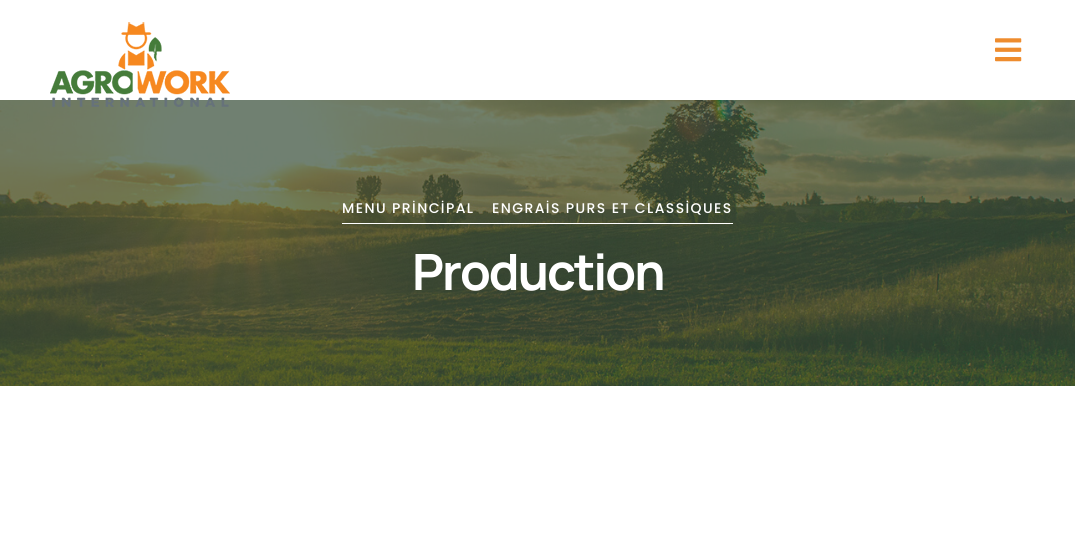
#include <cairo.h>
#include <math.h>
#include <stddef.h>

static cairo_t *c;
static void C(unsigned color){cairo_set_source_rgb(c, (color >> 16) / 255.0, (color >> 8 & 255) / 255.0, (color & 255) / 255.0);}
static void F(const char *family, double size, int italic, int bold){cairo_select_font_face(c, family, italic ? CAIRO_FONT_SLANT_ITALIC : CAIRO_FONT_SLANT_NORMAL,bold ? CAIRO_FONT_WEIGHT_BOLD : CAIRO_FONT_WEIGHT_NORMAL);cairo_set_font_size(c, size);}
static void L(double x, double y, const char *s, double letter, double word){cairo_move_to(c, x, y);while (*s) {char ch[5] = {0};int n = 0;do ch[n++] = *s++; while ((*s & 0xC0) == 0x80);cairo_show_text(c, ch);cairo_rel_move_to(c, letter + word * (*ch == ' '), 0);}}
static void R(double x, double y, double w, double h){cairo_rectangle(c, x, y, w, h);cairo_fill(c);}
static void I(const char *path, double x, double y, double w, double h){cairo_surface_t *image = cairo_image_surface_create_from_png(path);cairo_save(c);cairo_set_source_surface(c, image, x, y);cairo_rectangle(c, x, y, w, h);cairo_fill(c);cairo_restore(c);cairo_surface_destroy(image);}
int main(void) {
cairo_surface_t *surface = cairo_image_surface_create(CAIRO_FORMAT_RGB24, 1075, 541);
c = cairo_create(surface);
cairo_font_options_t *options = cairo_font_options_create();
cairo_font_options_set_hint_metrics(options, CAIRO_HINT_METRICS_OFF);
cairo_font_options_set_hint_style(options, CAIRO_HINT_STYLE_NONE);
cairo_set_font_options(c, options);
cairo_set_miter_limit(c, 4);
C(0xffffff);
cairo_paint(c);
I("3.png",0,100,1075,286);
I("1.png",50,22,180,85);
I("2.png",995,38,27,24);
F("Poppins Medium",14,0,0);
C(0xffffff);
L(342,213,"MENU PRİNCİPAL",1.4,0);
L(492,213,"ENGRAİS PURS ET CLASSİQUES",1.4,0);
R(342,223,391,1);
F("Manrope",50,0,1);
L(412,290,"Production",-2,0);
cairo_surface_write_to_png(surface, "o.png");
cairo_font_options_destroy(options);
cairo_destroy(c);
cairo_surface_destroy(surface);
return 0;
}
